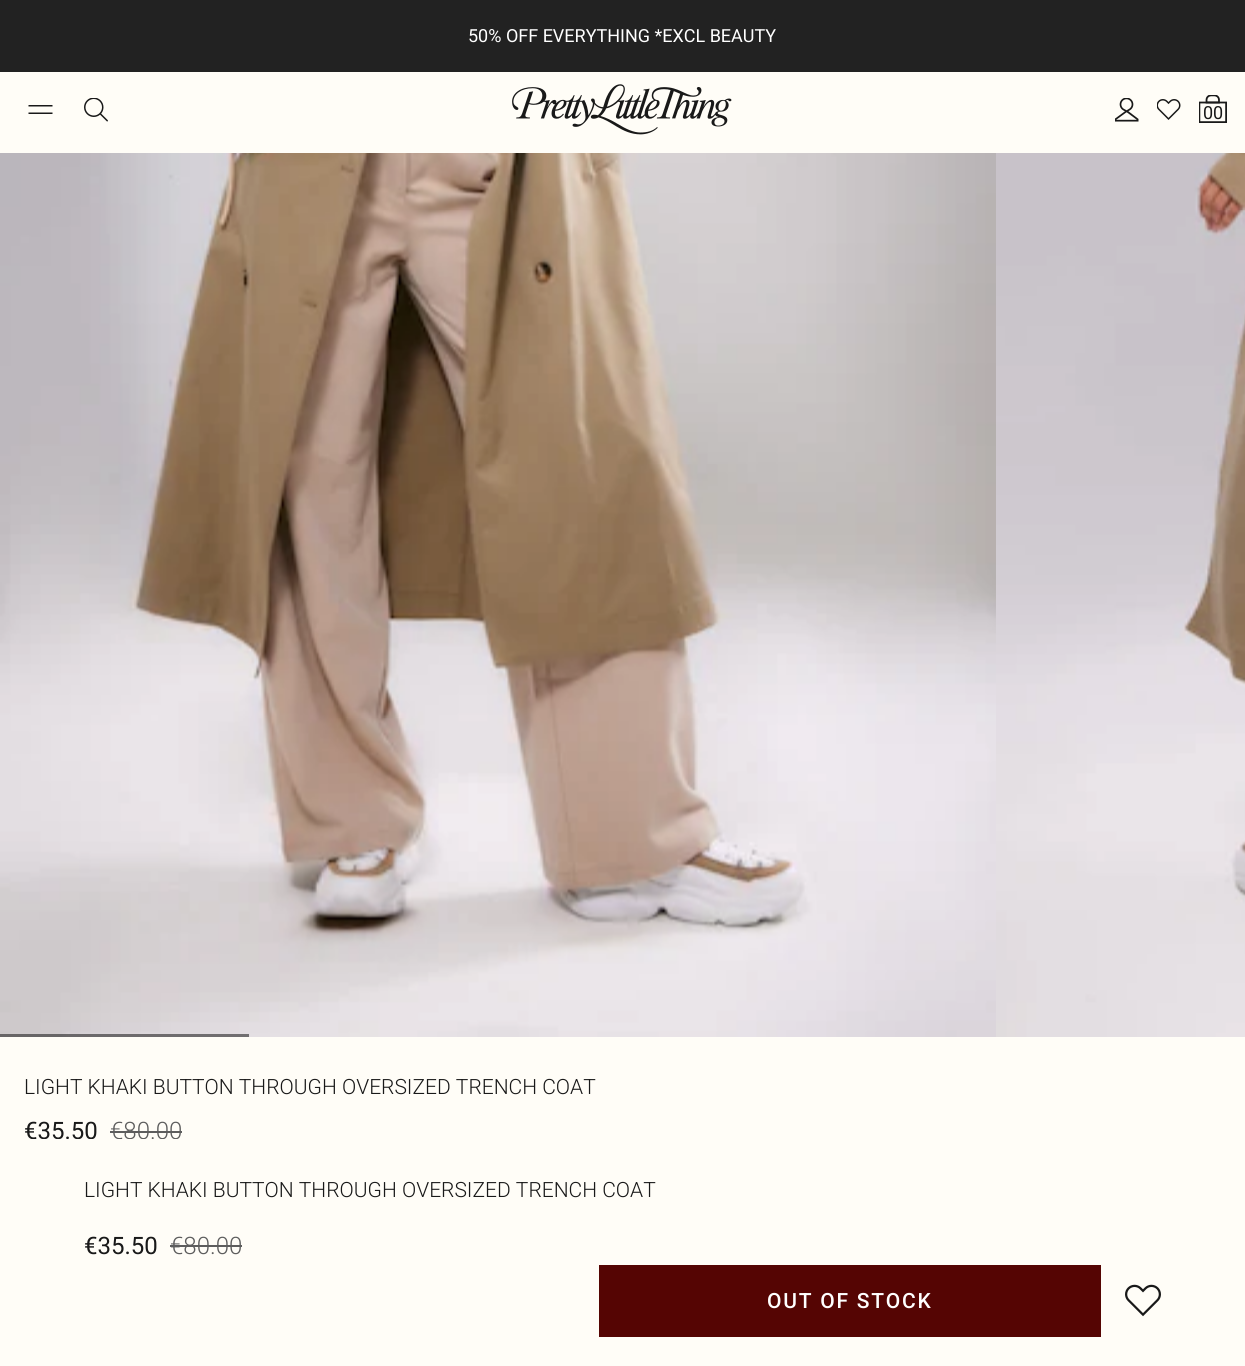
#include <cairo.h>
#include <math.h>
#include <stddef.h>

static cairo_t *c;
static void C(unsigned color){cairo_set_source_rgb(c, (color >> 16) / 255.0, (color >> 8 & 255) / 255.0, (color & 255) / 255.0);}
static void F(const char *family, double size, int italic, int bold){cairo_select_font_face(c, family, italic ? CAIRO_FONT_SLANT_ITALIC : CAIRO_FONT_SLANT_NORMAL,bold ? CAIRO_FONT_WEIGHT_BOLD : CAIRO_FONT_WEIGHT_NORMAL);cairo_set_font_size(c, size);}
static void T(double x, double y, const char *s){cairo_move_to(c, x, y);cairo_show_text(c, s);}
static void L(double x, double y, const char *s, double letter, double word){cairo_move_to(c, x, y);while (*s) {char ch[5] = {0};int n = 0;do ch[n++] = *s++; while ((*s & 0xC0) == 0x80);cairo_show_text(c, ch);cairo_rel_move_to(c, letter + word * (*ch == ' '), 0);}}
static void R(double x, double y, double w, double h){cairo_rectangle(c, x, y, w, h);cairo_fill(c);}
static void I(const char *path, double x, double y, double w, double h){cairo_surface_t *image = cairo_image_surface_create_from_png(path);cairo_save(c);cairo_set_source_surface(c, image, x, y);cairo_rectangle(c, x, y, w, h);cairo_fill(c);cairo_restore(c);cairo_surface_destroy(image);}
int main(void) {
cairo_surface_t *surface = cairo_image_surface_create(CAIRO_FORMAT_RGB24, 1245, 1366);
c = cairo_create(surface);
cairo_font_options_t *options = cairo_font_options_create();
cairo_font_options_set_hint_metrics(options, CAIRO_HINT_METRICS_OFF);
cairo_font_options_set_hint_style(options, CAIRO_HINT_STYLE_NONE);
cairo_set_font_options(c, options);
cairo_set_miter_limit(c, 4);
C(0xfffdf7);
cairo_paint(c);
C(0x222222);
R(0,0,1245,72);
F("Roboto",18,0,0);
C(0xffffff);
T(468,42,"50% OFF EVERYTHING *EXCL BEAUTY");
C(0x191919);
cairo_new_path(c);
cairo_move_to(c,28.5,105);
cairo_line_to(c,52.5,105);
cairo_line_to(c,52.5,106.5);
cairo_line_to(c,28.5,106.5);
cairo_close_path(c);
cairo_move_to(c,52.5,112.5);
cairo_line_to(c,52.5,114);
cairo_line_to(c,28.5,114);
cairo_line_to(c,28.5,112.5);
cairo_close_path(c);
cairo_fill(c);
I("1.png",84,98,24,24);
I("2.png",512,84,220,51);
I("3.png",1115,98,24,24);
I("4.png",1157,99,24,21);
I("5.png",1199,95,28,28);
T(1203,119,"00");
I("6.png",0,153,996,884);
I("7.png",996,153,249,884);
cairo_set_source_rgba(c,0,0,0,0.5);
R(0,1034,249,3);
F("Roboto Light",21,0,0);
C(0x191919);
T(24,1094,"LIGHT KHAKI BUTTON THROUGH OVERSIZED TRENCH COAT");
F("Roboto",24,0,0);
T(24,1139,"€35.50");
F("Roboto Light",24,0,0);
C(0x5d5d5d);
T(110,1139,"€80.00");
R(110,1131,72,2);
C(0xfffdf7);
R(31,1139,146,1);
F("Roboto Light",21,0,0);
C(0x191919);
T(84,1197,"LIGHT KHAKI BUTTON THROUGH OVERSIZED TRENCH COAT");
F("Roboto",24,0,0);
T(84,1254,"€35.50");
F("Roboto Light",24,0,0);
C(0x5d5d5d);
T(170,1254,"€80.00");
R(170,1245,72,2);
C(0x550503);
R(599,1265,502,72);
F("Roboto Medium",21,0,0);
C(0xffffff);
L(767,1308,"OUT OF STOCK",1.75,0);
I("8.png",1125,1284,36,33);
cairo_surface_write_to_png(surface, "o.png");
cairo_font_options_destroy(options);
cairo_destroy(c);
cairo_surface_destroy(surface);
return 0;
}
